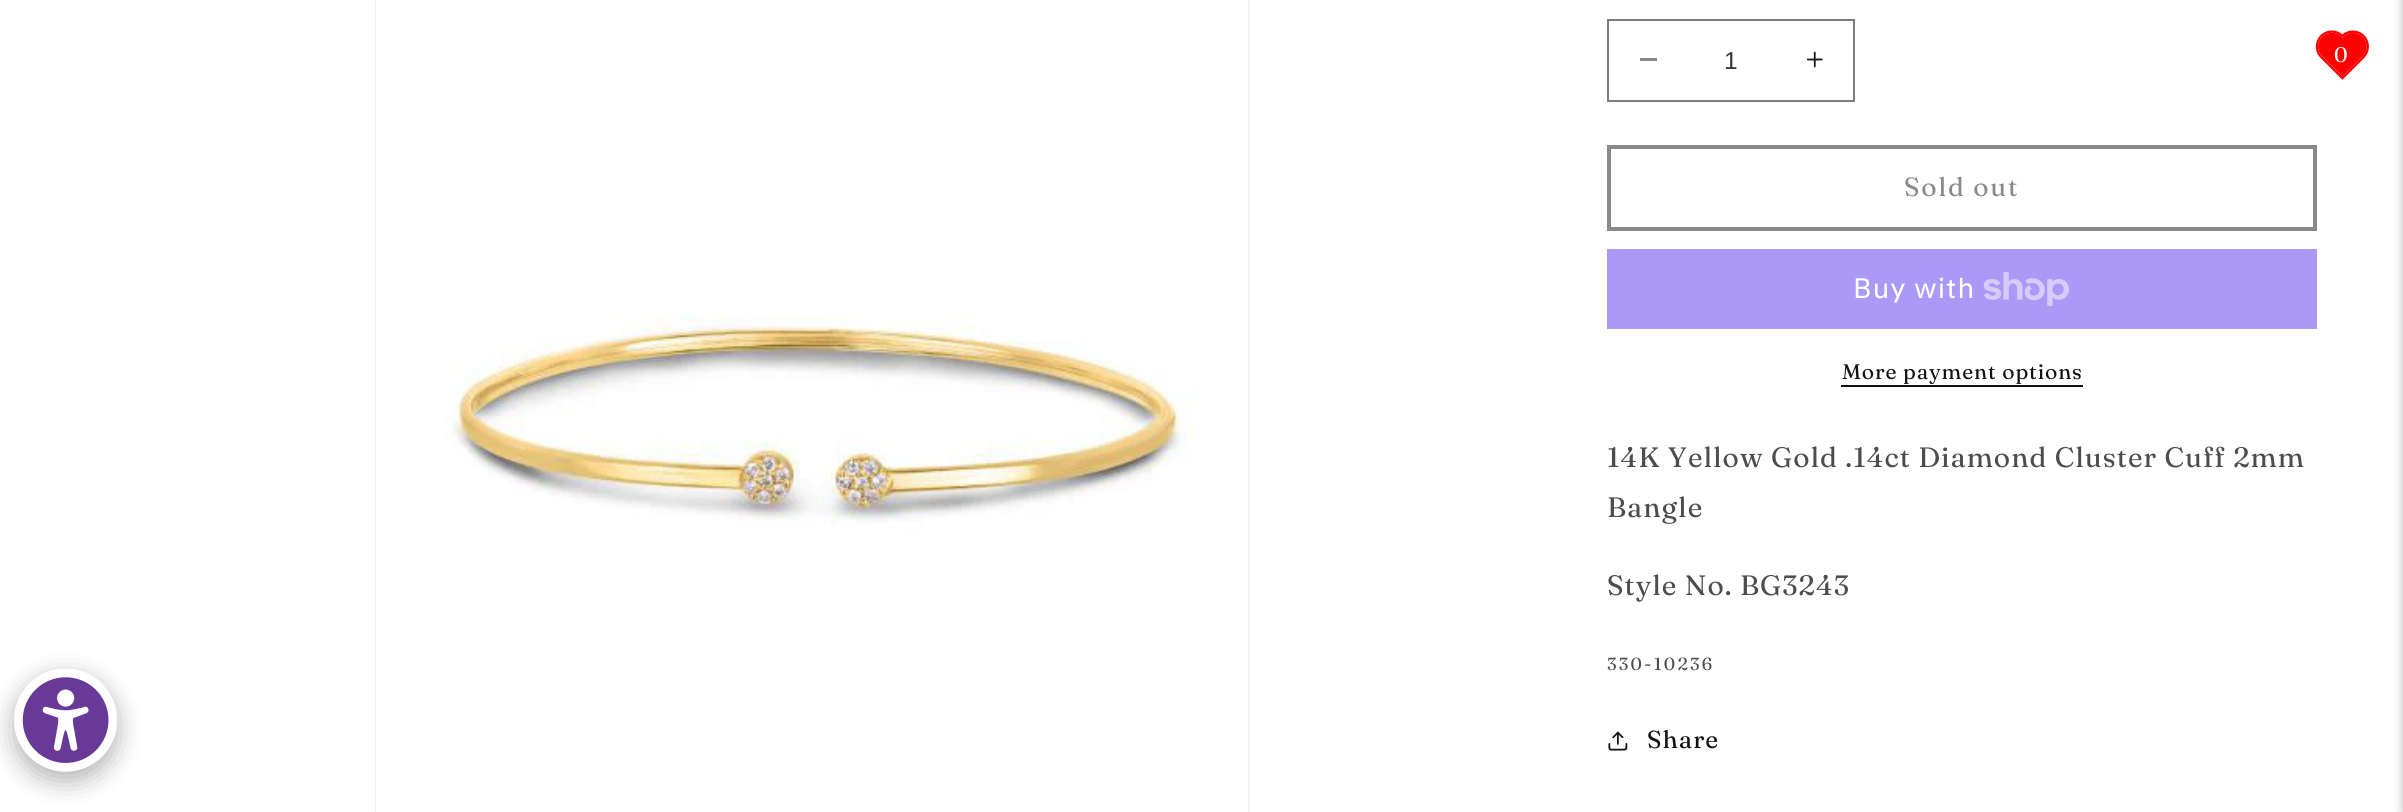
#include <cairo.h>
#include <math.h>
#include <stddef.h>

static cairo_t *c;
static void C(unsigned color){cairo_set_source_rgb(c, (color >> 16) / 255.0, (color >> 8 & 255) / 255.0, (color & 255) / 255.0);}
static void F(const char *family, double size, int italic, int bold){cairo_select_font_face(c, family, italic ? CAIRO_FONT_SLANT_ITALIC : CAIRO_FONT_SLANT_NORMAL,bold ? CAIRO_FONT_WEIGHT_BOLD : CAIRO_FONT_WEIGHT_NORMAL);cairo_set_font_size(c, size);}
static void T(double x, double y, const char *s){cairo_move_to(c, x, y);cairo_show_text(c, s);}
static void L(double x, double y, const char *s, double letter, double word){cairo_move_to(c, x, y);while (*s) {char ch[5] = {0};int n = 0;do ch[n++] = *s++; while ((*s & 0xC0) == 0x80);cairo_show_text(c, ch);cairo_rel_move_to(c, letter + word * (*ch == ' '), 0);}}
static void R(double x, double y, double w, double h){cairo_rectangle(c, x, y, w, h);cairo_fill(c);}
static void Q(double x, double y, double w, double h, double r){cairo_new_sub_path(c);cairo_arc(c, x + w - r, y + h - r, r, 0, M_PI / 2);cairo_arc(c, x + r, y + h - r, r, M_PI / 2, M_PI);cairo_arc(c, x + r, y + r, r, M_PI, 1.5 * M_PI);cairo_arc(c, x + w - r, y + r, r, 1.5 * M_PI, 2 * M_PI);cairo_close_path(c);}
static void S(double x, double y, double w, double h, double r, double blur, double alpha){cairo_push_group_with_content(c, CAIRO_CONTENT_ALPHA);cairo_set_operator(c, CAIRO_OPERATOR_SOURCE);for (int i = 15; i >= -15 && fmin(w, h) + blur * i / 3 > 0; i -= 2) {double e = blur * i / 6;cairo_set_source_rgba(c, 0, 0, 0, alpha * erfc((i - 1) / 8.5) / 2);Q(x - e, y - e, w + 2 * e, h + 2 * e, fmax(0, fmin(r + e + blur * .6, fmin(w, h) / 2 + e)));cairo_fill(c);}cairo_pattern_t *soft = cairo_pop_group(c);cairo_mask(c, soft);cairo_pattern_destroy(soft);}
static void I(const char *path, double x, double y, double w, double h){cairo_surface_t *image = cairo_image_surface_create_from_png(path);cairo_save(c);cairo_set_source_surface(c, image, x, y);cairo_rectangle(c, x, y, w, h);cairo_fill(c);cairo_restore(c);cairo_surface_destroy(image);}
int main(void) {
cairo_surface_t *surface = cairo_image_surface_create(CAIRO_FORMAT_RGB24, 2403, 812);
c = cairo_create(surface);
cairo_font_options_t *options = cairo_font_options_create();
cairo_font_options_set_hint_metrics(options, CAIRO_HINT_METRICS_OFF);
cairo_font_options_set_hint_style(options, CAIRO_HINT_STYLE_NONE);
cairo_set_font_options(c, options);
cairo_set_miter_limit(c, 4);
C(0xffffff);
cairo_paint(c);
C(0x000000);
S(14,677,103,104,51.5,13,.3);
I("1.png",14,669,103,103);
cairo_rectangle(c,376,-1,873,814);
C(0xf3f3f3);
cairo_stroke(c);
I("2.png",376,0,822,812);
C(0x898989);
R(1640,58,17,3);
I("3.png",1806,51,17,17);
cairo_rectangle(c,1608,20,246,81);
C(0x7d7d7d);
cairo_stroke(c);
F("Liberation Sans",24.5,0,0);
C(0x363636);
T(1724,69,"1");
cairo_rectangle(c,1609,147,706,82);
C(0x898989);
cairo_set_line_width(c,4);
cairo_stroke(c);
F("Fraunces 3",26.25,0,0);
L(1904,196,"Sold out",1.75,0);
C(0xaa99f5);
R(1607,249,710,80);
F("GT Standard",28,0,0);
C(0xffffff);
L(1853,298,"Buy with",1.05,0);
I("4.png",1983,272,86,34);
F("Fraunces",21,0,0);
C(0x121212);
L(1842,379,"More payment options",.9,0);
R(1841,385,242,2);
F("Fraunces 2",28,0,0);
C(0x4d4d4d);
L(1607,467,"14K Yellow Gold .14ct Diamond Cluster Cuff 2mm",1.05,0);
L(1607,517,"Bangle",1.05,0);
L(1607,595,"Style No. BG3243",1.05,0);
F("Fraunces",17.5,0,0);
L(1607,670,"330-10236",2.25,0);
I("5.png",1608,731,20,20);
F("Fraunces",24.5,0,0);
C(0x121212);
L(1647,748,"Share",1.05,0);
I("6.png",2315,30,54,50);
F("Fraunces",21,0,0);
C(0xffffff);
L(2334,62,"0",1.05,0);
C(0x000000);
S(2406,0,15,812,0,6,.5);
cairo_surface_write_to_png(surface, "o.png");
cairo_font_options_destroy(options);
cairo_destroy(c);
cairo_surface_destroy(surface);
return 0;
}
